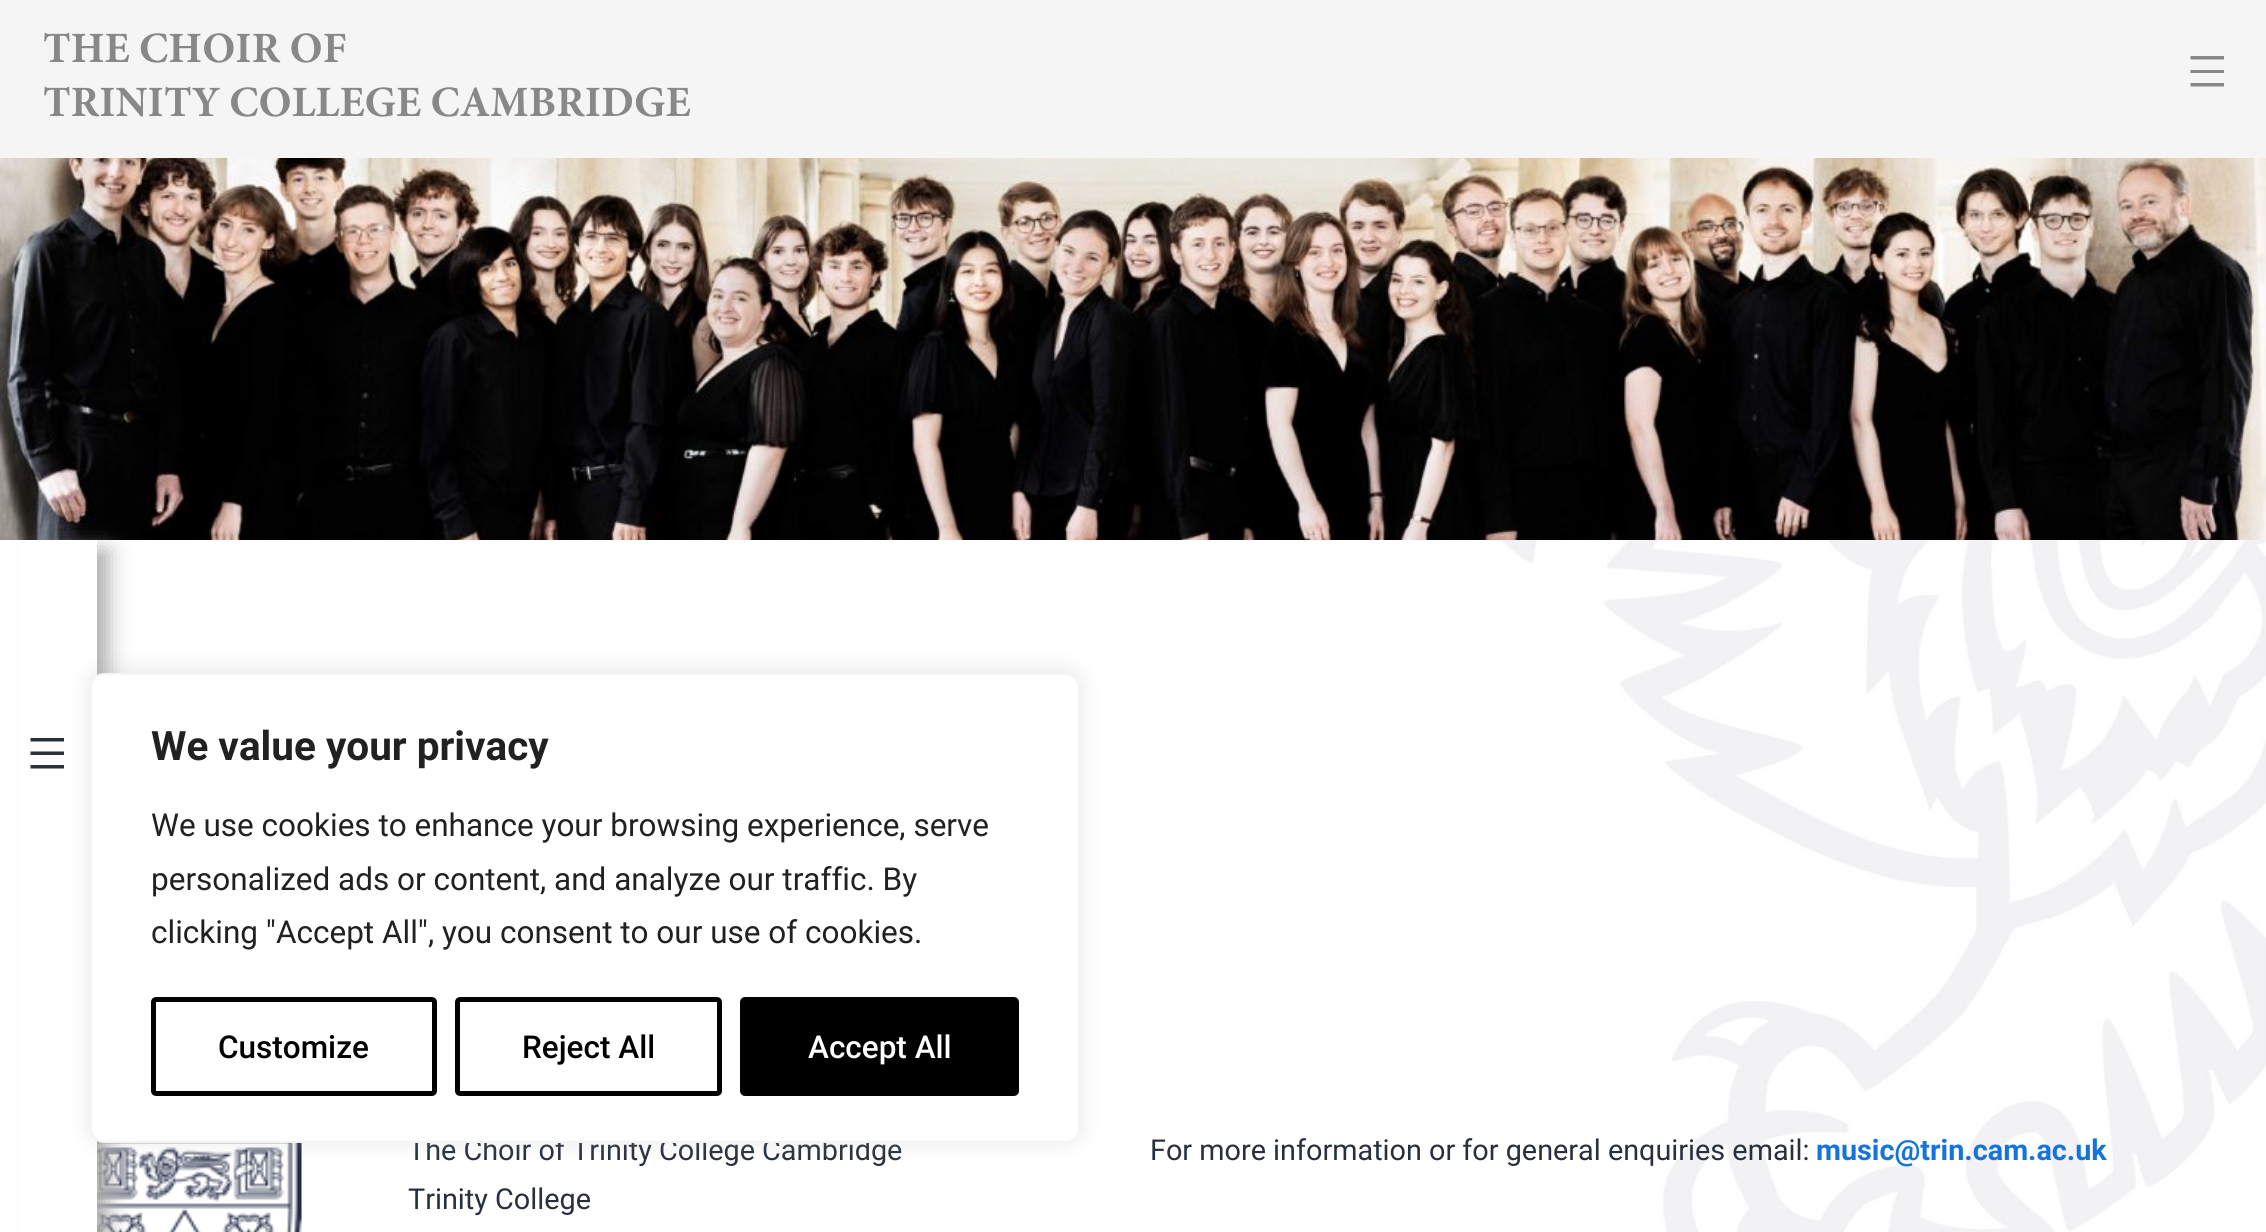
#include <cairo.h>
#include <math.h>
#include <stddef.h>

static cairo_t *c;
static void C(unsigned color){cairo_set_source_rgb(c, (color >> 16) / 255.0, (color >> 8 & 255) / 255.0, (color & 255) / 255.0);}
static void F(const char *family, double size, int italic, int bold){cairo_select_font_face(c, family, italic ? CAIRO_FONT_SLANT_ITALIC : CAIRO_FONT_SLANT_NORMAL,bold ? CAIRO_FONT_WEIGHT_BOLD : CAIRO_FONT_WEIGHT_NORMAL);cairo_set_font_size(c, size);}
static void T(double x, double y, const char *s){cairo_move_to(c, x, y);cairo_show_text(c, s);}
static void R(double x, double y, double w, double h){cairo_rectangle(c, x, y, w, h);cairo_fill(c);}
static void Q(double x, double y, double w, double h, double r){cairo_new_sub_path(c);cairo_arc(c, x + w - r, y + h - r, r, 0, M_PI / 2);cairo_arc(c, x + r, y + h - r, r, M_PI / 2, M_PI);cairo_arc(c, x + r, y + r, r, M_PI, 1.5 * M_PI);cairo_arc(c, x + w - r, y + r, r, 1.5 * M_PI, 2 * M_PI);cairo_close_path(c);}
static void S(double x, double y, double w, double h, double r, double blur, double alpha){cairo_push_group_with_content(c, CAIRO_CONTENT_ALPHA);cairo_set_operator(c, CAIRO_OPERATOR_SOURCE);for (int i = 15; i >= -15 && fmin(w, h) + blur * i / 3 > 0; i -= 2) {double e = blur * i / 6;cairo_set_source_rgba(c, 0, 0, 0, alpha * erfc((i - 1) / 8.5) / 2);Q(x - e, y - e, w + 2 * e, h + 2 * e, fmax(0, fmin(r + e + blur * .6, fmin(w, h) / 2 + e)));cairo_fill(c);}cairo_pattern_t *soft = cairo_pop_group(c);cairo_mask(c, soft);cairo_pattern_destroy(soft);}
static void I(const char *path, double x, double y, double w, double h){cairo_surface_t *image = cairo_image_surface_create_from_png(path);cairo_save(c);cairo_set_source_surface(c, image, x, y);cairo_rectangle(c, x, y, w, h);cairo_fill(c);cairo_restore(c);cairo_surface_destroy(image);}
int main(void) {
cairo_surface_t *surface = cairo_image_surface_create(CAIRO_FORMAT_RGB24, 2266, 1232);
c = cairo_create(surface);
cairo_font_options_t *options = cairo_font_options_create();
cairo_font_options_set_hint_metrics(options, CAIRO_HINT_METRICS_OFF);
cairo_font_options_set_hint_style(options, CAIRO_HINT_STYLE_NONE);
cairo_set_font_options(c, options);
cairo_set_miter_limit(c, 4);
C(0xffffff);
cairo_paint(c);
I("1.png",1468,540,798,692);
C(0xf5f5f5);
R(0,0,2266,158);
F("Minion",43.25,0,1);
C(0x888888);
T(43,62,"THE CHOIR OF");
T(43,116,"TRINITY COLLEGE CAMBRIDGE");
cairo_set_fill_rule(c,CAIRO_FILL_RULE_EVEN_ODD);
cairo_new_path(c);
cairo_move_to(c,2190.5,56);
cairo_line_to(c,2224,56);
cairo_line_to(c,2224,59.5);
cairo_line_to(c,2190.5,59.5);
cairo_close_path(c);
cairo_move_to(c,2190.5,70);
cairo_line_to(c,2224,70);
cairo_line_to(c,2224,73);
cairo_line_to(c,2190.5,73);
cairo_close_path(c);
cairo_move_to(c,2224,83);
cairo_line_to(c,2190.5,83);
cairo_line_to(c,2190.5,86.5);
cairo_line_to(c,2224,86.5);
cairo_close_path(c);
cairo_fill(c);
I("2.png",0,158,2266,382);
I("3.png",97,1141,205,91);
C(0xaaaaaa);
S(41,551,67,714,0,11,1);
C(0xffffff);
R(20,540,77,692);
C(0x28303d);
cairo_new_path(c);
cairo_move_to(c,30.5,738);
cairo_line_to(c,64,738);
cairo_line_to(c,64,741.5);
cairo_line_to(c,30.5,741.5);
cairo_close_path(c);
cairo_move_to(c,30.5,751.5);
cairo_line_to(c,64,751.5);
cairo_line_to(c,64,755);
cairo_line_to(c,30.5,755);
cairo_close_path(c);
cairo_move_to(c,64,765);
cairo_line_to(c,30.5,765);
cairo_line_to(c,30.5,768.5);
cairo_line_to(c,64,768.5);
cairo_close_path(c);
cairo_fill(c);
F("Roboto",28.8,0,0);
T(408,1160,"The Choir of Trinity College Cambridge");
T(408,1209,"Trinity College");
T(1150,1160,"For more information or for general enquiries email:");
F("Roboto",28.8,0,1);
C(0x1573dd);
T(1816,1160,"music@trin.cam.ac.uk");
C(0xacabab);
S(90,671,990,470,14,11,.3);
C(0xffffff);
Q(91,674,988,468,13);
cairo_fill_preserve(c);
C(0xf4f4f4);
cairo_stroke(c);
F("Roboto",40.5,0,1);
C(0x212121);
T(151,760,"We value your privacy");
F("Roboto",31.5,0,0);
T(151,836,"We use cookies to enhance your browsing experience, serve");
T(151,890,"personalized ads or content, and analyze our traffic. By");
T(151,943,"clicking \"Accept All\", you consent to our use of cookies.");
Q(153.5,999.5,281,94,2.5);
C(0x000000);
cairo_set_line_width(c,5);
cairo_stroke(c);
F("Roboto Medium",31.5,0,0);
T(218,1058,"Customize");
Q(457.5,999.5,262,94,2.5);
cairo_stroke(c);
T(522,1058,"Reject All");
Q(742.5,999.5,274,94,2.5);
cairo_fill_preserve(c);
cairo_stroke(c);
C(0xffffff);
T(808,1058,"Accept All");
cairo_surface_write_to_png(surface, "o.png");
cairo_font_options_destroy(options);
cairo_destroy(c);
cairo_surface_destroy(surface);
return 0;
}
